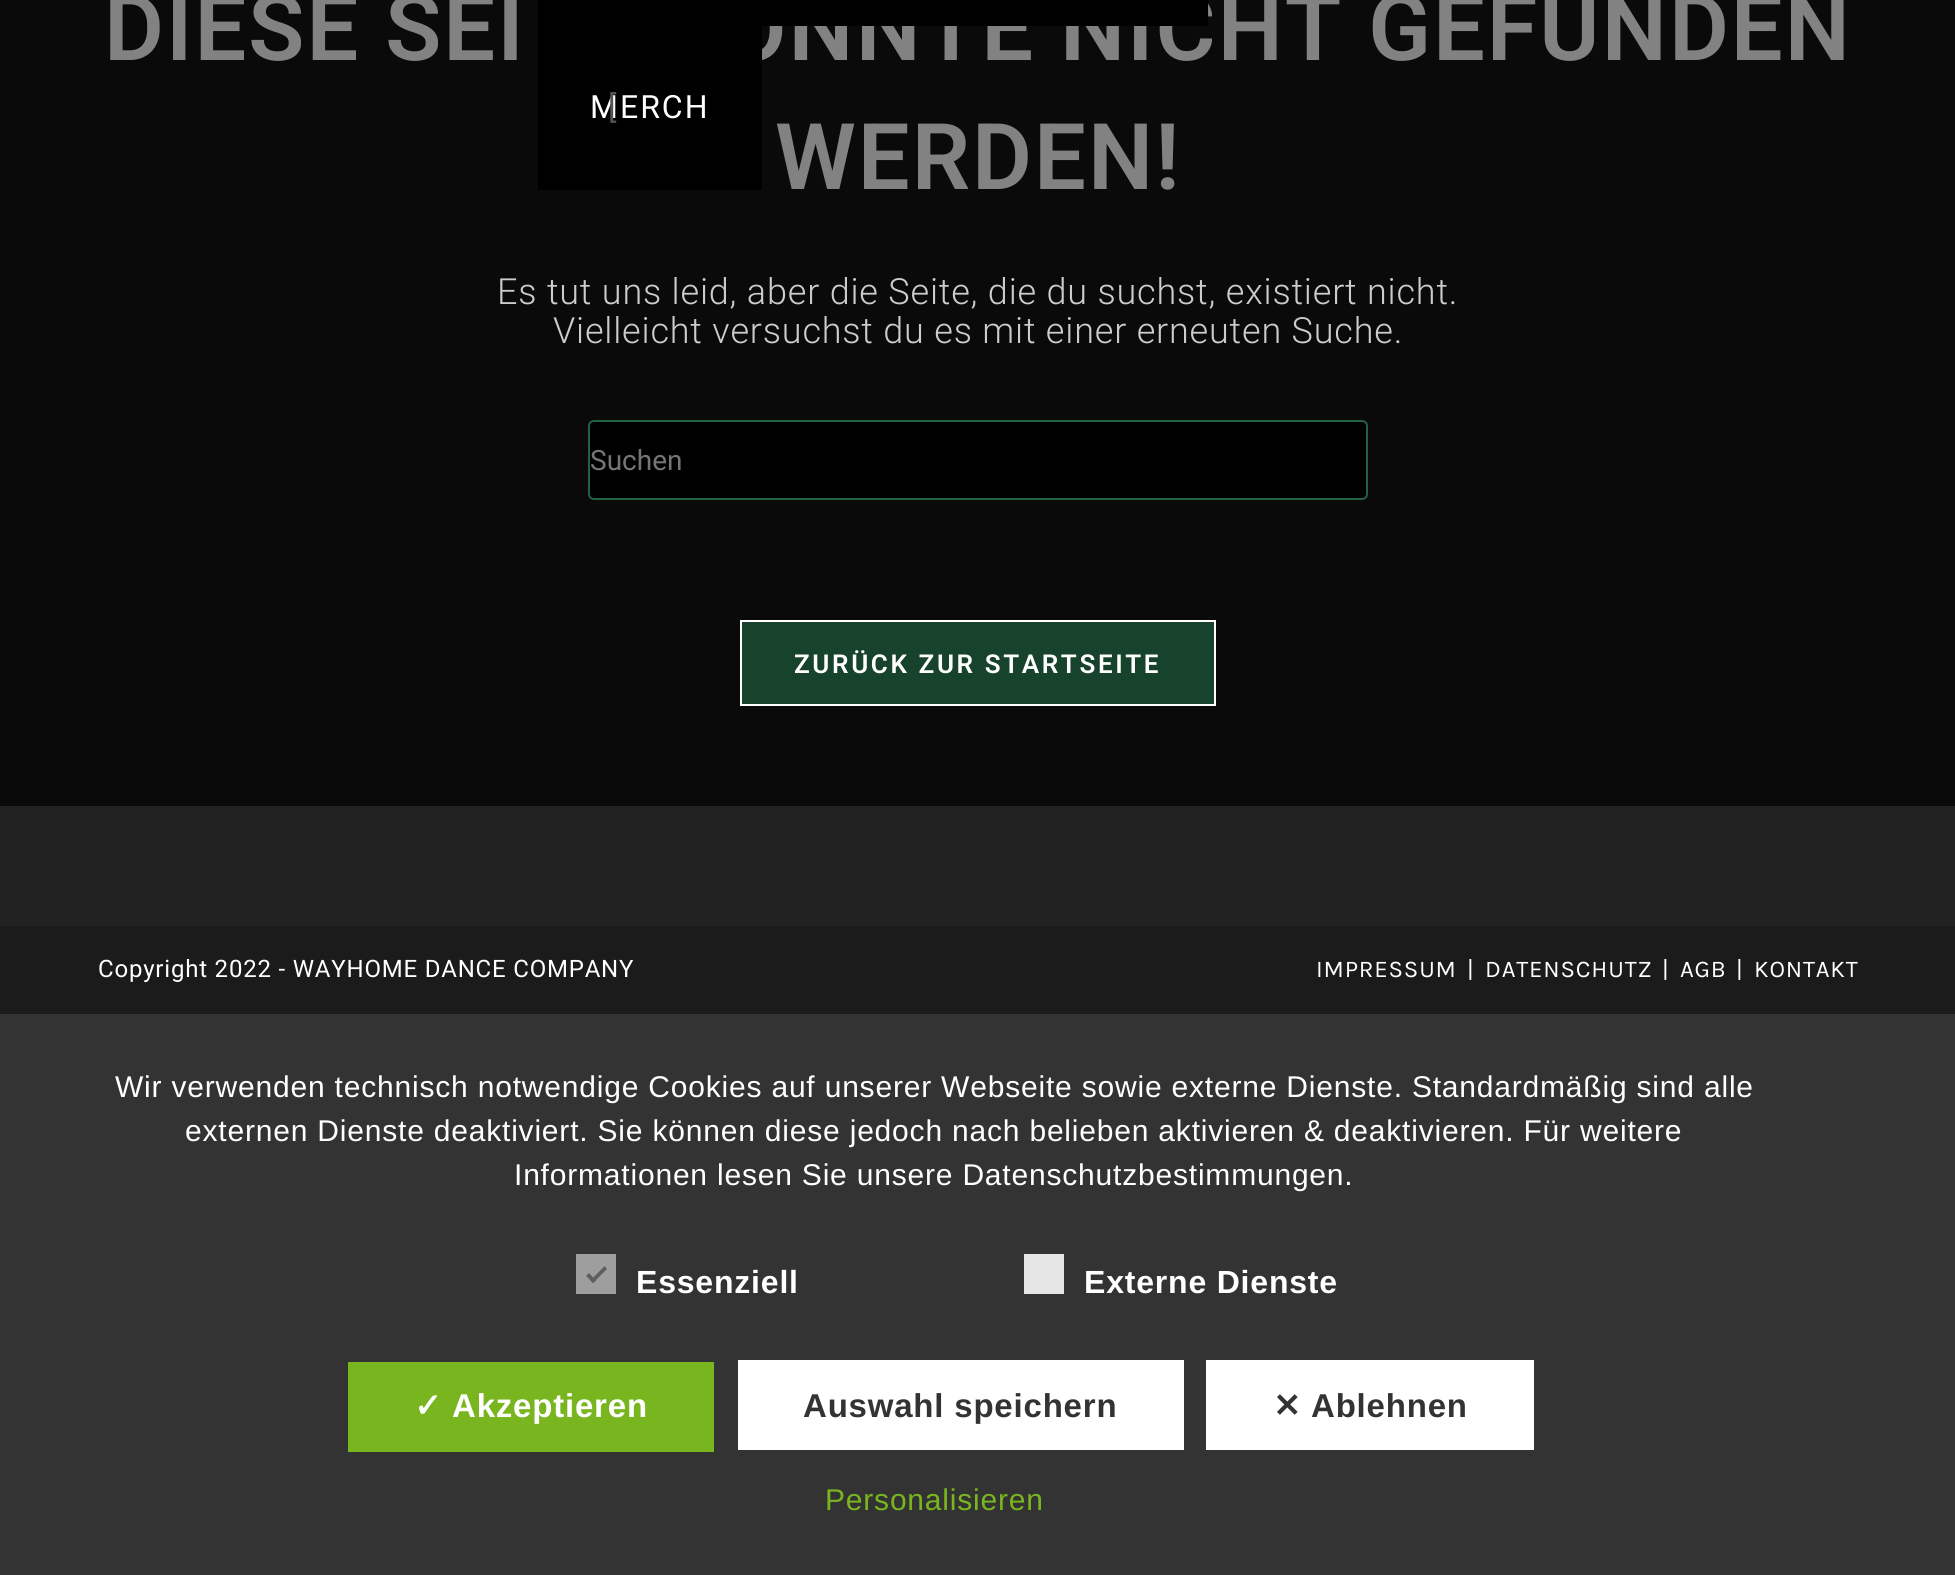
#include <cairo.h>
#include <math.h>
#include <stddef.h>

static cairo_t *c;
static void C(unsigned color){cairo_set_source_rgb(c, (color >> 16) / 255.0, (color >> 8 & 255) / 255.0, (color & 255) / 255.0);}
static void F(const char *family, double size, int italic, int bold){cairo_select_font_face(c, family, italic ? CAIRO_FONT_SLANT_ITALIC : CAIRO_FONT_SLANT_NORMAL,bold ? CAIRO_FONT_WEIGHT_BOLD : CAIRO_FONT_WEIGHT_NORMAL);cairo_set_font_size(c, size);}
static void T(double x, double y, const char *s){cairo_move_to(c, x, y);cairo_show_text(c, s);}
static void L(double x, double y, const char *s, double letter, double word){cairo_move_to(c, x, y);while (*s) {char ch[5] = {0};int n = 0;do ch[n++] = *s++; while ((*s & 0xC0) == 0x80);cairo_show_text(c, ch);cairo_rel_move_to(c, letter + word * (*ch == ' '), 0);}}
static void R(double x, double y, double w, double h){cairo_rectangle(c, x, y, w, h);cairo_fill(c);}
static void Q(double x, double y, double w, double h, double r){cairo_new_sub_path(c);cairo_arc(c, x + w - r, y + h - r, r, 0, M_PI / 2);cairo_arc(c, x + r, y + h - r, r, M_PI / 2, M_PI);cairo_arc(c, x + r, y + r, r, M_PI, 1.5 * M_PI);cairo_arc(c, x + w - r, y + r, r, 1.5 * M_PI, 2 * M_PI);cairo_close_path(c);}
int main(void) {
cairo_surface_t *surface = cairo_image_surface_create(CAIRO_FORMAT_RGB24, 1955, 1575);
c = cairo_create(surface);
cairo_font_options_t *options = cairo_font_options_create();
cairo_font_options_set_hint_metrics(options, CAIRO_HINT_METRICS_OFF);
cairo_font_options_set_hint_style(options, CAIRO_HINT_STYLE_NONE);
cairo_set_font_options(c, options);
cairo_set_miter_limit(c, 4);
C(0x0a0a0a);
cairo_paint(c);
F("Roboto SemiBold",92,0,0);
C(0x828282);
L(104,60,"DIESE SEI",2,0);
L(723,60,"ONNTE NICHT GEFUNDEN",2,0);
L(775,189,"WERDEN!",2,0);
F("Roboto Light",36,0,0);
C(0xcccccc);
L(497,304,"Es tut uns leid, aber die Seite, die du suchst, existiert nicht.",.8,0);
L(553,343,"Vielleicht versuchst du es mit einer erneuten Suche.",.8,0);
C(0x000000);
Q(589,421,778,78,5);
cairo_fill_preserve(c);
C(0x246042);
cairo_stroke(c);
F("Roboto",28,0,0);
C(0x757575);
T(590,470,"Suchen");
C(0x17422c);
cairo_rectangle(c,741,621,474,84);
cairo_fill_preserve(c);
C(0xffffff);
cairo_stroke(c);
F("Roboto SemiBold",26,0,0);
L(794,673,"ZURÜCK ZUR STARTSEITE",2.6,0);
C(0x000000);
R(538,0,670,26);
R(538,26,224,164);
F("Roboto",32,0,0);
C(0xffffff);
L(590,118,"MERCH",2,0);
C(0x545454);
L(608,118,"[",2,0);
C(0x222222);
R(0,806,1955,120);
C(0x1b1b1b);
R(0,926,1955,88);
F("Roboto",24,0,0);
C(0xffffff);
L(98,977,"Copyright 2022 - WAYHOME DANCE COMPANY",.8,0);
F("Karla",24,0,0);
L(1316,977,"IMPRESSUM",.8,0);
L(1467,977,"|",.8,0);
L(1485,977,"DATENSCHUTZ",.8,0);
L(1662,977,"|",.8,0);
L(1680,977,"AGB",.8,0);
L(1736,977,"|",.8,0);
L(1754,977,"KONTAKT",.8,0);
C(0x333333);
R(0,1014,1955,561);
F("Liberation Sans",30,0,0);
C(0xffffff);
L(115,1097,"Wir verwenden technisch notwendige Cookies auf unserer Webseite sowie externe Dienste. Standardmäßig sind alle",.8,0);
L(185,1141,"externen Dienste deaktiviert. Sie können diese jedoch nach belieben aktivieren & deaktivieren. Für weitere",.8,0);
L(514,1185,"Informationen lesen Sie unsere Datenschutzbestimmungen.",.8,0);
C(0x9e9e9e);
R(576,1254,40,40);
C(0x5e5e5e);
cairo_new_path(c);
cairo_move_to(c,604.5,1266);
cairo_line_to(c,607,1269);
cairo_line_to(c,593,1283);
cairo_line_to(c,590.5,1280.5);
cairo_close_path(c);
cairo_fill(c);
cairo_new_path(c);
cairo_move_to(c,589,1273);
cairo_line_to(c,596,1280.5);
cairo_line_to(c,593,1283);
cairo_line_to(c,586,1276);
cairo_close_path(c);
cairo_fill(c);
F("Liberation Sans",32,0,1);
C(0xffffff);
L(636,1293,"Essenziell",.8,0);
C(0xe6e6e6);
R(1024,1254,40,40);
C(0xffffff);
L(1084,1293,"Externe Dienste",.8,0);
C(0x79b51f);
R(348,1362,366,90);
F("DejaVu Sans",33,0,1);
C(0xffffff);
L(414,1417,"✓",.8,0);
F("Liberation Sans",33,0,1);
L(452,1417,"Akzeptieren",.8,0);
R(738,1360,446,90);
C(0x333333);
L(803,1417,"Auswahl speichern",.8,0);
C(0xffffff);
R(1206,1360,328,90);
F("DejaVu Sans",33,0,1);
C(0x333333);
L(1273,1417,"✕",.8,0);
F("Liberation Sans",33,0,1);
L(1311,1417,"Ablehnen",.8,0);
F("Liberation Sans",30,0,0);
C(0x79b51f);
L(825,1510,"Personalisieren",.8,0);
cairo_surface_write_to_png(surface, "o.png");
cairo_font_options_destroy(options);
cairo_destroy(c);
cairo_surface_destroy(surface);
return 0;
}
